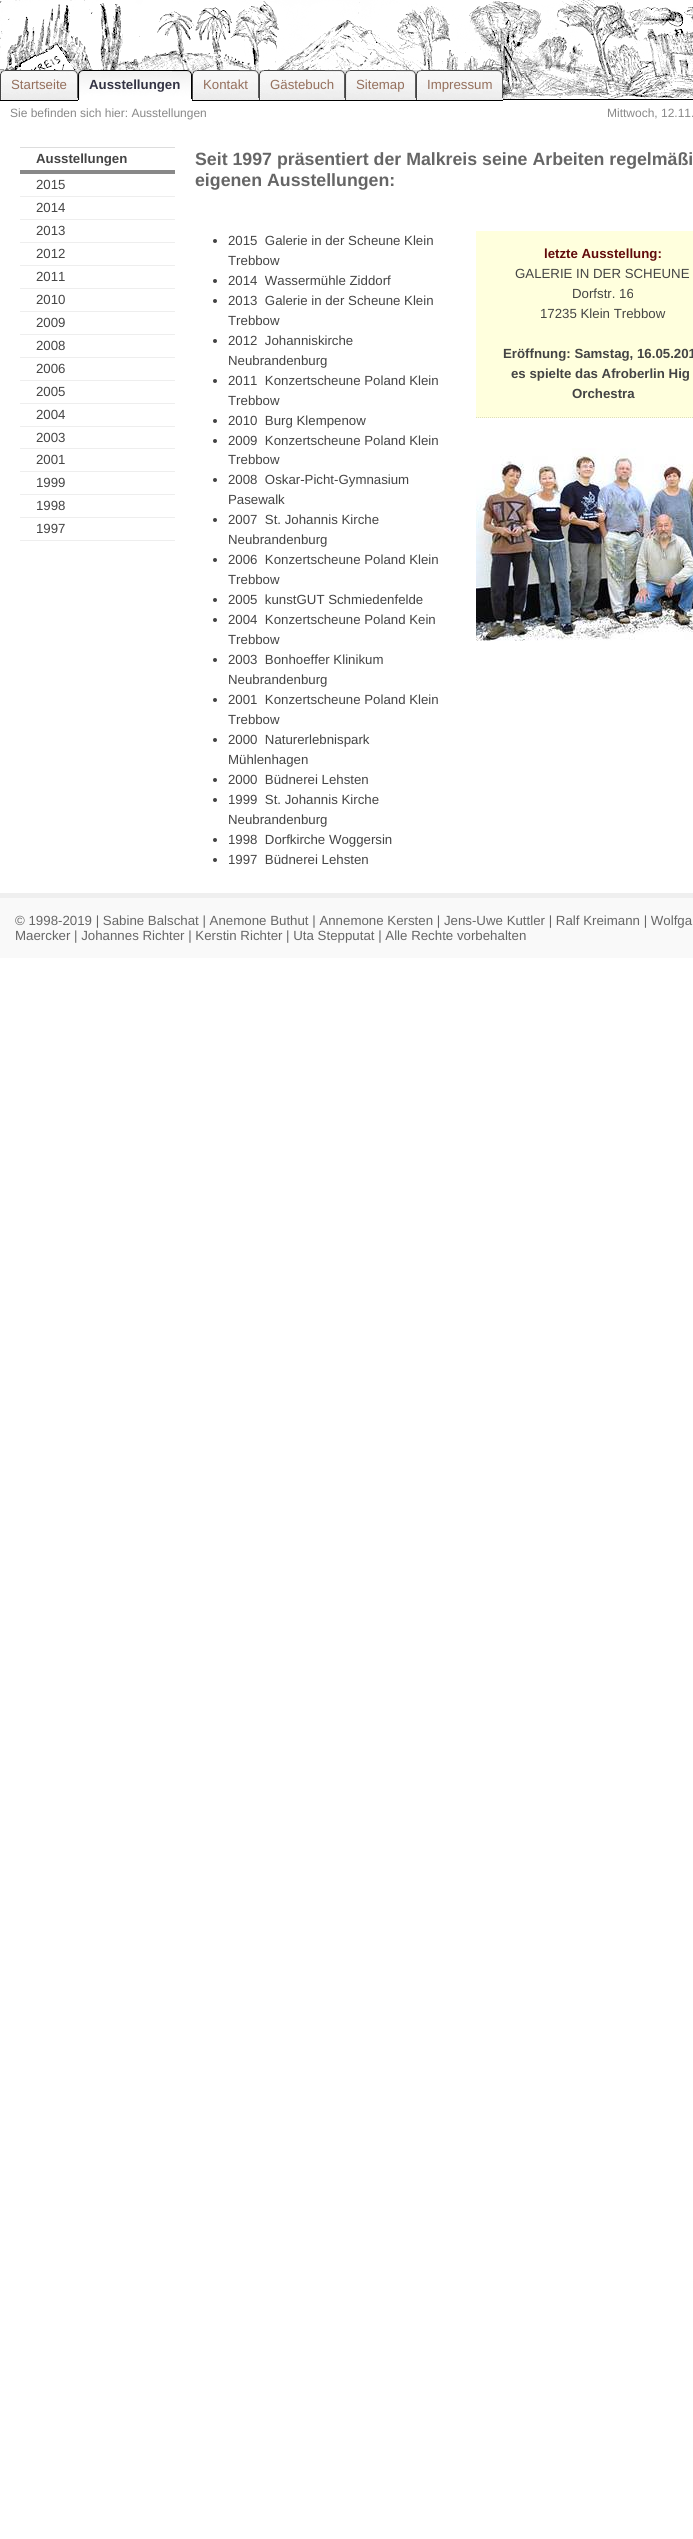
#include <cairo.h>
#include <math.h>
#include <stddef.h>

static cairo_t *c;
static void C(unsigned color){cairo_set_source_rgb(c, (color >> 16) / 255.0, (color >> 8 & 255) / 255.0, (color & 255) / 255.0);}
static void F(const char *family, double size, int italic, int bold){cairo_select_font_face(c, family, italic ? CAIRO_FONT_SLANT_ITALIC : CAIRO_FONT_SLANT_NORMAL,bold ? CAIRO_FONT_WEIGHT_BOLD : CAIRO_FONT_WEIGHT_NORMAL);cairo_set_font_size(c, size);}
static void T(double x, double y, const char *s){cairo_move_to(c, x, y);cairo_show_text(c, s);}
static void R(double x, double y, double w, double h){cairo_rectangle(c, x, y, w, h);cairo_fill(c);}
static void I(const char *path, double x, double y, double w, double h){cairo_surface_t *image = cairo_image_surface_create_from_png(path);cairo_save(c);cairo_set_source_surface(c, image, x, y);cairo_rectangle(c, x, y, w, h);cairo_fill(c);cairo_restore(c);cairo_surface_destroy(image);}
int main(void) {
cairo_surface_t *surface = cairo_image_surface_create(CAIRO_FORMAT_RGB24, 693, 2539);
c = cairo_create(surface);
cairo_font_options_t *options = cairo_font_options_create();
cairo_font_options_set_hint_metrics(options, CAIRO_HINT_METRICS_OFF);
cairo_font_options_set_hint_style(options, CAIRO_HINT_STYLE_NONE);
cairo_set_font_options(c, options);
cairo_set_miter_limit(c, 4);
C(0xffffff);
cairo_paint(c);
I("1.png",0,0,693,100);
I("2.png",0,70,78,30);
C(0x000000);
R(0,100,78,1);
I("3.png",58,70,20,28);
F("Liberation Sans",13.25,0,0);
C(0x946f5c);
T(11,89,"Startseite");
I("4.png",78,70,114,30);
I("5.png",172,70,20,29);
F("Liberation Sans",13.25,0,1);
C(0x333344);
T(89,89,"Ausstellungen");
I("6.png",192,70,67,30);
C(0x000000);
R(192,100,311,1);
I("3.png",239,70,20,28);
F("Liberation Sans",13.25,0,0);
C(0x946f5c);
T(203,89,"Kontakt");
I("7.png",259,70,86,30);
I("3.png",325,70,20,28);
T(270,89,"Gästebuch");
I("8.png",345,70,71,30);
I("3.png",396,70,20,28);
T(356,89,"Sitemap");
I("9.png",416,70,87,30);
I("3.png",483,70,20,28);
T(427,89,"Impressum");
F("Liberation Sans",12,0,0);
C(0x888888);
T(10,117,"Sie befinden sich hier: Ausstellungen");
T(607,117,"Mittwoch, 12.11.");
C(0xdddddd);
R(20,147,155,1);
C(0x888888);
R(20,170,155,4);
F("Liberation Sans",13.25,0,1);
C(0x444444);
T(36,163,"Ausstellungen");
C(0xeeeeee);
R(20,196,155,1);
F("Liberation Sans",13.25,0,0);
C(0x444444);
T(36,189,"2015");
C(0xeeeeee);
R(20,219,155,1);
C(0x444444);
T(36,212,"2014");
C(0xeeeeee);
R(20,242,155,1);
C(0x444444);
T(36,235,"2013");
C(0xeeeeee);
R(20,265,155,1);
C(0x444444);
T(36,258,"2012");
C(0xeeeeee);
R(20,288,155,1);
C(0x444444);
T(36,281,"2011");
C(0xeeeeee);
R(20,311,155,1);
C(0x444444);
T(36,304,"2010");
C(0xeeeeee);
R(20,334,155,1);
C(0x444444);
T(36,327,"2009");
C(0xeeeeee);
R(20,357,155,1);
C(0x444444);
T(36,350,"2008");
C(0xeeeeee);
R(20,380,155,1);
C(0x444444);
T(36,373,"2006");
C(0xeeeeee);
R(20,403,155,1);
C(0x444444);
T(36,396,"2005");
C(0xeeeeee);
R(20,426,155,1);
C(0x444444);
T(36,419,"2004");
C(0xeeeeee);
R(20,448,155,1);
C(0x444444);
T(36,442,"2003");
C(0xeeeeee);
R(20,471,155,1);
C(0x444444);
T(36,464,"2001");
C(0xeeeeee);
R(20,494,155,1);
C(0x444444);
T(36,487,"1999");
C(0xeeeeee);
R(20,517,155,1);
C(0x444444);
T(36,510,"1998");
C(0xeeeeee);
R(20,540,155,1);
C(0x444444);
T(36,533,"1997");
F("Liberation Sans",17.75,0,1);
C(0x666666);
T(195,165,"Seit 1997 präsentiert der Malkreis seine Arbeiten regelmäßi");
T(195,186,"eigenen Ausstellungen:");
C(0x444444);
cairo_new_path(c);
cairo_arc(c,215,241,2,0,2 * M_PI);
cairo_fill(c);
F("Liberation Sans",13.25,0,0);
T(228,245,"2015  Galerie in der Scheune Klein");
T(228,265,"Trebbow");
cairo_new_path(c);
cairo_arc(c,215,281,2,0,2 * M_PI);
cairo_fill(c);
T(228,285,"2014  Wassermühle Ziddorf");
cairo_new_path(c);
cairo_arc(c,215,301,2,0,2 * M_PI);
cairo_fill(c);
T(228,305,"2013  Galerie in der Scheune Klein");
T(228,325,"Trebbow");
cairo_new_path(c);
cairo_arc(c,215,341,2,0,2 * M_PI);
cairo_fill(c);
T(228,345,"2012  Johanniskirche");
T(228,365,"Neubrandenburg");
cairo_new_path(c);
cairo_arc(c,215,381,2,0,2 * M_PI);
cairo_fill(c);
T(228,385,"2011  Konzertscheune Poland Klein");
T(228,405,"Trebbow");
cairo_new_path(c);
cairo_arc(c,215,421,2,0,2 * M_PI);
cairo_fill(c);
T(228,425,"2010  Burg Klempenow");
cairo_new_path(c);
cairo_arc(c,215,441,2,0,2 * M_PI);
cairo_fill(c);
T(228,445,"2009  Konzertscheune Poland Klein");
T(228,464,"Trebbow");
cairo_new_path(c);
cairo_arc(c,215,480,2,0,2 * M_PI);
cairo_fill(c);
T(228,484,"2008  Oskar-Picht-Gymnasium");
T(228,504,"Pasewalk");
cairo_new_path(c);
cairo_arc(c,215,520,2,0,2 * M_PI);
cairo_fill(c);
T(228,524,"2007  St. Johannis Kirche");
T(228,544,"Neubrandenburg");
cairo_new_path(c);
cairo_arc(c,215,560,2,0,2 * M_PI);
cairo_fill(c);
T(228,564,"2006  Konzertscheune Poland Klein");
T(228,584,"Trebbow");
cairo_new_path(c);
cairo_arc(c,215,600,2,0,2 * M_PI);
cairo_fill(c);
T(228,604,"2005  kunstGUT Schmiedenfelde");
cairo_new_path(c);
cairo_arc(c,215,620,2,0,2 * M_PI);
cairo_fill(c);
T(228,624,"2004  Konzertscheune Poland Kein");
T(228,644,"Trebbow");
cairo_new_path(c);
cairo_arc(c,215,660,2,0,2 * M_PI);
cairo_fill(c);
T(228,664,"2003  Bonhoeffer Klinikum");
T(228,684,"Neubrandenburg");
cairo_new_path(c);
cairo_arc(c,215,700,2,0,2 * M_PI);
cairo_fill(c);
T(228,704,"2001  Konzertscheune Poland Klein");
T(228,724,"Trebbow");
cairo_new_path(c);
cairo_arc(c,215,740,2,0,2 * M_PI);
cairo_fill(c);
T(228,744,"2000  Naturerlebnispark");
T(228,764,"Mühlenhagen");
cairo_new_path(c);
cairo_arc(c,215,780,2,0,2 * M_PI);
cairo_fill(c);
T(228,784,"2000  Büdnerei Lehsten");
cairo_new_path(c);
cairo_arc(c,215,800,2,0,2 * M_PI);
cairo_fill(c);
T(228,804,"1999  St. Johannis Kirche");
T(228,824,"Neubrandenburg");
cairo_new_path(c);
cairo_arc(c,215,840,2,0,2 * M_PI);
cairo_fill(c);
T(228,844,"1998  Dorfkirche Woggersin");
cairo_new_path(c);
cairo_arc(c,215,860,2,0,2 * M_PI);
cairo_fill(c);
T(228,864,"1997  Büdnerei Lehsten");
C(0xffffdd);
R(476,231,217,187);
cairo_new_path(c);
cairo_move_to(c,476,417.5);
cairo_line_to(c,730,417.5);
C(0xddddbb);
cairo_set_line_width(c,1);
cairo_set_dash(c,(double[]){1,1},2,0);
cairo_stroke(c);
F("Liberation Sans",13.25,0,1);
C(0x610b0b);
T(544,258,"letzte Ausstellung:");
F("Liberation Sans",13.25,0,0);
C(0x444444);
T(515,278,"GALERIE IN DER SCHEUNE");
T(572,298,"Dorfstr. 16");
T(540,318,"17235 Klein Trebbow");
F("Liberation Sans",13.25,0,1);
T(503,358,"Eröffnung: Samstag, 16.05.201");
T(511,378,"es spielte das Afroberlin Hig");
T(572,398,"Orchestra");
I("10.png",476,448,217,193);
C(0xf9f9f9);
R(0,898,693,60);
C(0xefefef);
R(0,893,693,5);
F("Liberation Sans",13.28,0,0);
C(0x666666);
T(15,925,"© 1998-2019 | Sabine Balschat | Anemone Buthut | Annemone Kersten | Jens-Uwe Kuttler | Ralf Kreimann | Wolfga");
T(15,940,"Maercker | Johannes Richter | Kerstin Richter | Uta Stepputat | Alle Rechte vorbehalten");
cairo_surface_write_to_png(surface, "o.png");
cairo_font_options_destroy(options);
cairo_destroy(c);
cairo_surface_destroy(surface);
return 0;
}
